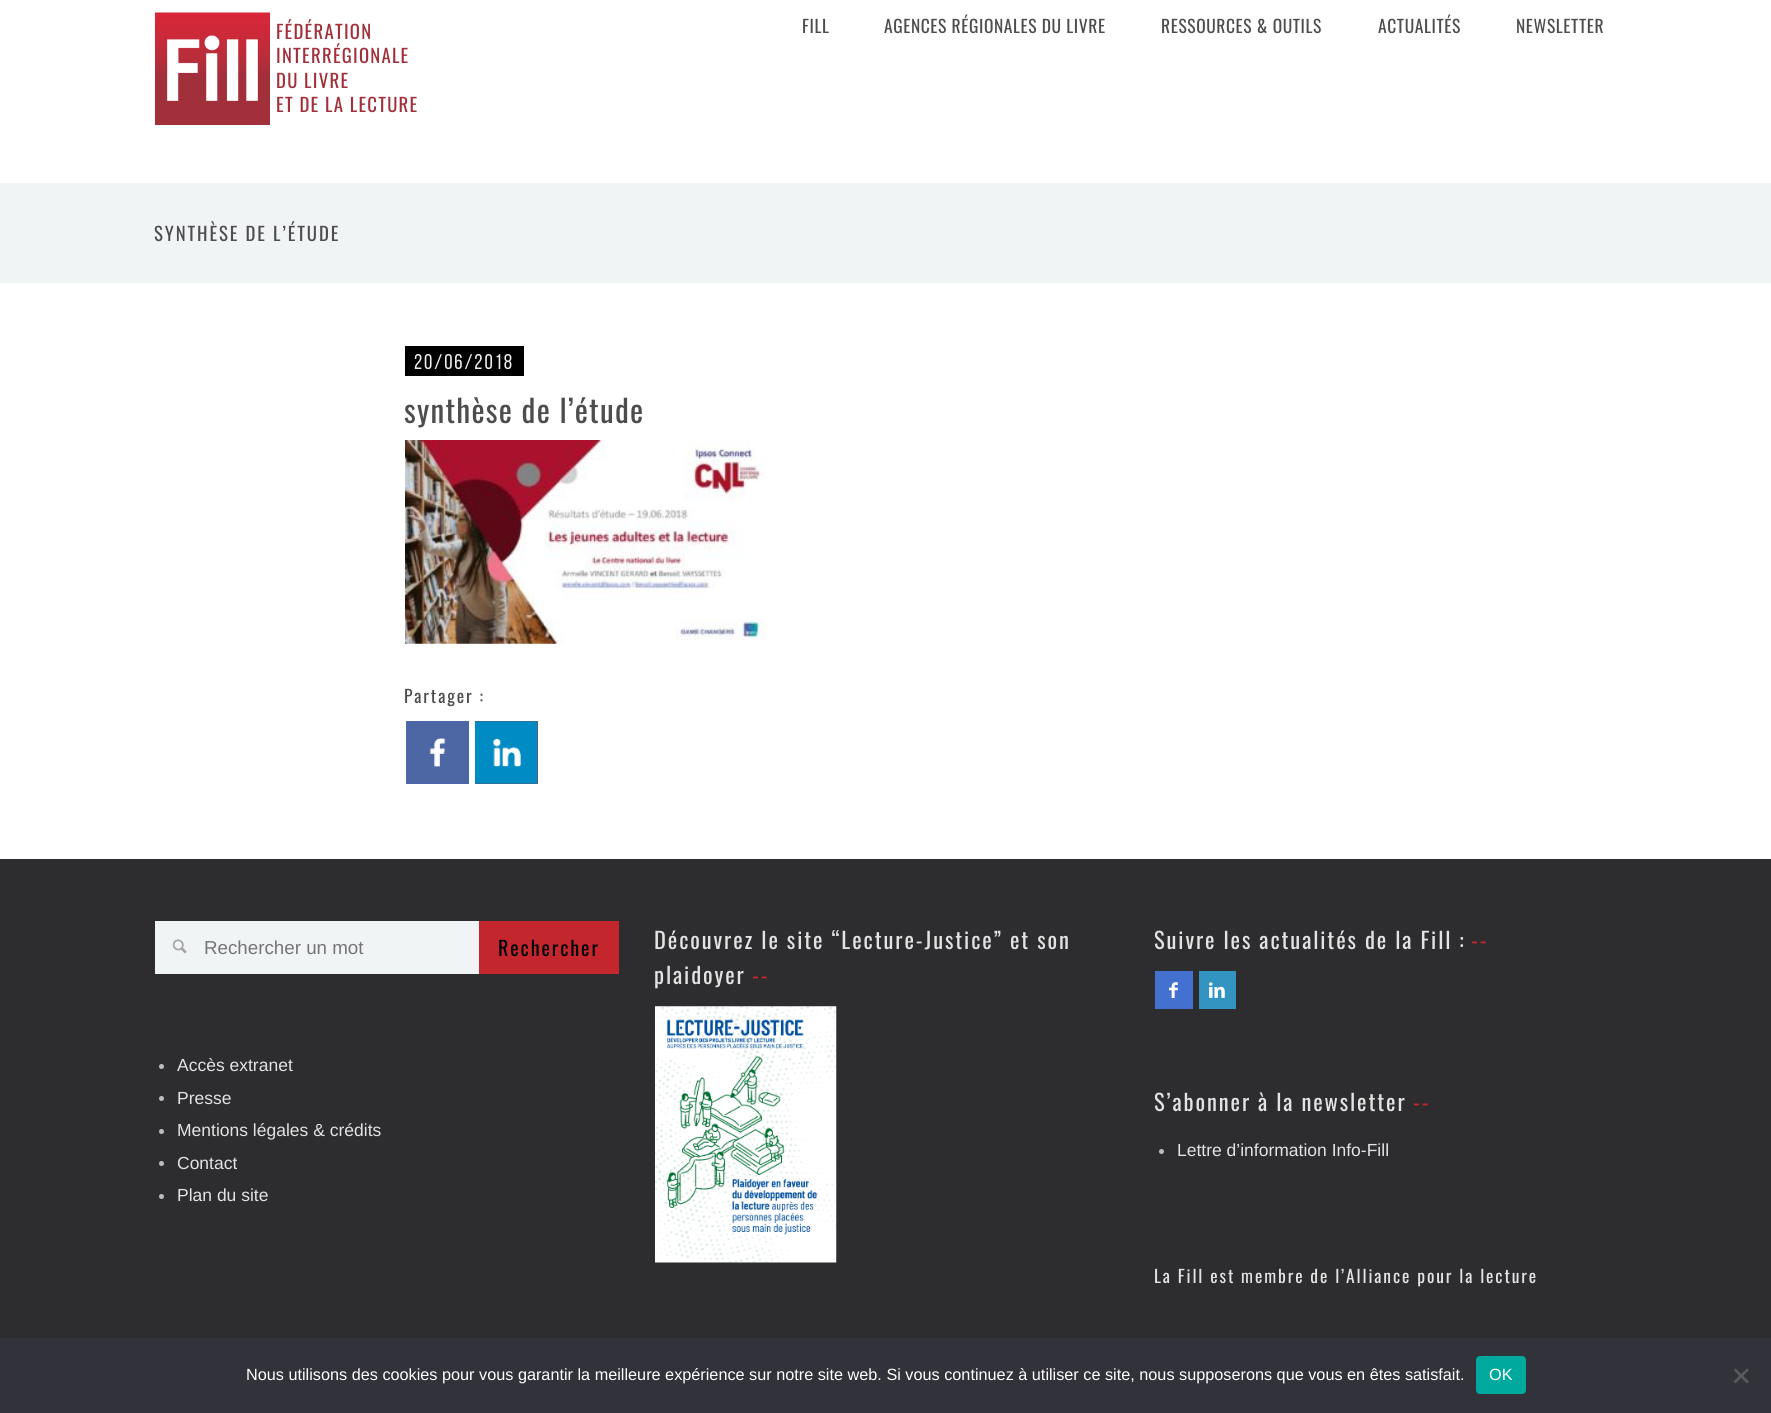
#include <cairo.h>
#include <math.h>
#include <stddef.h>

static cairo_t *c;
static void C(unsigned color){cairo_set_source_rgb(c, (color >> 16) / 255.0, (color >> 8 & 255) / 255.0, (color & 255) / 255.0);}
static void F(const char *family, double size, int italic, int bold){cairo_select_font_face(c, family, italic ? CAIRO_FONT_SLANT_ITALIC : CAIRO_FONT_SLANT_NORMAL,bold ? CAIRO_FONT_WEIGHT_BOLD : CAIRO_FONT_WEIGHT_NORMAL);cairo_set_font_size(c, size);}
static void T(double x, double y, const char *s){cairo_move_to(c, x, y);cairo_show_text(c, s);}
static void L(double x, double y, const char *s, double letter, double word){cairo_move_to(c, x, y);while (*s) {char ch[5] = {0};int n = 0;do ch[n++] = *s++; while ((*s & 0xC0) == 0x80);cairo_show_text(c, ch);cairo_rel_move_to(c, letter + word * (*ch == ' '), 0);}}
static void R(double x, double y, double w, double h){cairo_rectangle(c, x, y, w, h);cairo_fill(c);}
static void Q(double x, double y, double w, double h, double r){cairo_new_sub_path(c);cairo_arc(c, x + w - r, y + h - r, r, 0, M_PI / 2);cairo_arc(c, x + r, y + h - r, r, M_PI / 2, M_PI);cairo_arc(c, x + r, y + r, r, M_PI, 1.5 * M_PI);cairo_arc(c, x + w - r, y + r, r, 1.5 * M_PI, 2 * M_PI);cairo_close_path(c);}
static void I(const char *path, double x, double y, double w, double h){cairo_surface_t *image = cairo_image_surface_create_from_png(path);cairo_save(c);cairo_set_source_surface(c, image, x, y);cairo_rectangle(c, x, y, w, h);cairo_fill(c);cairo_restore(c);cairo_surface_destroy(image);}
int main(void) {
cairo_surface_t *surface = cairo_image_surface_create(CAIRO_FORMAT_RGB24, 1771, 1413);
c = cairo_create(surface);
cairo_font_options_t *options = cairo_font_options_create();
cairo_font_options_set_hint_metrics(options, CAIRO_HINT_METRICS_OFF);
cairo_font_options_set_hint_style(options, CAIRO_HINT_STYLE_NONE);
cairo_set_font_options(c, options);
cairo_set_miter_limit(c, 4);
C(0xffffff);
cairo_paint(c);
I("1.png",155,12,115,113);
F("Oswald",18.75,0,0);
C(0xa2303b);
L(276,39,"FÉDÉRATION",1.25,0);
L(276,63,"INTERRÉGIONALE",1.25,0);
L(276,88,"DU LIVRE",1.25,0);
L(276,112,"ET DE LA LECTURE",1.25,0);
F("Oswald",17.5,0,0);
C(0x4d4d4d);
L(802,33,"FILL",.6,0);
L(884,33,"AGENCES RÉGIONALES DU LIVRE",.6,0);
L(1161,33,"RESSOURCES & OUTILS",.6,0);
L(1378,33,"ACTUALITÉS",.6,0);
L(1516,33,"NEWSLETTER",.6,0);
C(0xf1f4f5);
R(0,183,1771,100);
F("Oswald",18.75,0,0);
C(0x4d4d4d);
L(154,241,"SYNTHÈSE DE L’ÉTUDE",1.9,0);
C(0x000000);
R(405,346,119,30);
F("Bebas Neue",21.25,0,0);
C(0xeeeeee);
L(414,369,"20/06/2018",1.9,0);
F("Oswald",31.25,0,0);
C(0x4d4d4d);
L(404,423,"synthèse de l’étude",1.25,0);
I("2.png",405,440,361,204);
F("Oswald",17.5,0,0);
L(404,703,"Partager :",1.9,0);
C(0x4470cf);
R(406,721,63,63);
I("3.png",406,721,63,63);
C(0xc4262e);
R(475,721,63,63);
I("4.png",475,721,63,63);
C(0x2d2d30);
R(0,859,1771,479);
C(0xf1f4f5);
R(155,921,324,53);
I("5.png",172,939,15,15);
F("Liberation Sans",18.75,0,0);
C(0x757575);
T(204,954,"Rechercher un mot");
C(0xc4262e);
R(479,921,140,53);
F("Oswald",20,0,0);
C(0x000000);
L(498,956,"Rechercher",1.9,0);
C(0xbdbdbd);
cairo_new_path(c);
cairo_arc(c,161.5,1066.5,2.5,0,2 * M_PI);
cairo_fill(c);
F("Liberation Sans",17.5,0,0);
C(0xe3e3e3);
T(177,1071,"Accès extranet");
C(0xbdbdbd);
cairo_new_path(c);
cairo_arc(c,161.5,1098.5,2.5,0,2 * M_PI);
cairo_fill(c);
C(0xe3e3e3);
T(177,1104,"Presse");
C(0xbdbdbd);
cairo_new_path(c);
cairo_arc(c,161.5,1131.5,2.5,0,2 * M_PI);
cairo_fill(c);
C(0xe3e3e3);
T(177,1136,"Mentions légales & crédits");
C(0xbdbdbd);
cairo_new_path(c);
cairo_arc(c,161.5,1163.5,2.5,0,2 * M_PI);
cairo_fill(c);
C(0xe3e3e3);
T(177,1169,"Contact");
C(0xbdbdbd);
cairo_new_path(c);
cairo_arc(c,161.5,1196.5,2.5,0,2 * M_PI);
cairo_fill(c);
C(0xe3e3e3);
T(177,1201,"Plan du site");
F("Oswald",22.5,0,0);
L(654,949,"Découvrez le site “Lecture-Justice” et son",1.9,0);
L(654,984,"plaidoyer",1.9,0);
C(0xc4262e);
L(752,984,"--",1.9,0);
I("6.png",655,1006,182,257);
C(0xe3e3e3);
L(1154,949,"Suivre les actualités de la Fill :",1.9,0);
C(0xc4262e);
L(1471,949,"--",1.9,0);
C(0x4470cf);
R(1155,971,38,38);
I("7.png",1169,982,9,16);
C(0x3393c1);
R(1199,971,37,38);
I("8.png",1209,982,16,16);
C(0xe3e3e3);
L(1154,1111,"S’abonner à la newsletter",1.9,0);
C(0xc4262e);
L(1413,1111,"--",1.9,0);
C(0xbdbdbd);
cairo_new_path(c);
cairo_arc(c,1161.5,1151.5,2.5,0,2 * M_PI);
cairo_fill(c);
F("Liberation Sans",17.5,0,0);
C(0xe3e3e3);
T(1177,1156,"Lettre d’information Info-Fill");
F("Oswald",17.5,0,0);
L(1154,1283,"La Fill est membre de l’Alliance pour la lecture",1.9,0);
C(0x32323a);
R(0,1338,1771,75);
F("Liberation Sans",16.25,0,0);
C(0xffffff);
T(246,1380,"Nous utilisons des cookies pour vous garantir la meilleure expérience sur notre site web. Si vous continuez à utiliser ce site, nous supposerons que vous en êtes satisfait.");
C(0x00a99d);
Q(1476,1356,50,38,4);
cairo_fill(c);
C(0xffffff);
T(1489,1380,"OK");
C(0x59595d);
cairo_new_path(c);
cairo_move_to(c,1747,1368.5);
cairo_line_to(c,1749,1370);
cairo_line_to(c,1735.5,1383.5);
cairo_line_to(c,1733.5,1381.5);
cairo_close_path(c);
cairo_fill(c);
cairo_new_path(c);
cairo_move_to(c,1733.5,1370);
cairo_line_to(c,1735.5,1368.5);
cairo_line_to(c,1749,1381.5);
cairo_line_to(c,1747,1383.5);
cairo_close_path(c);
cairo_fill(c);
cairo_surface_write_to_png(surface, "o.png");
cairo_font_options_destroy(options);
cairo_destroy(c);
cairo_surface_destroy(surface);
return 0;
}
